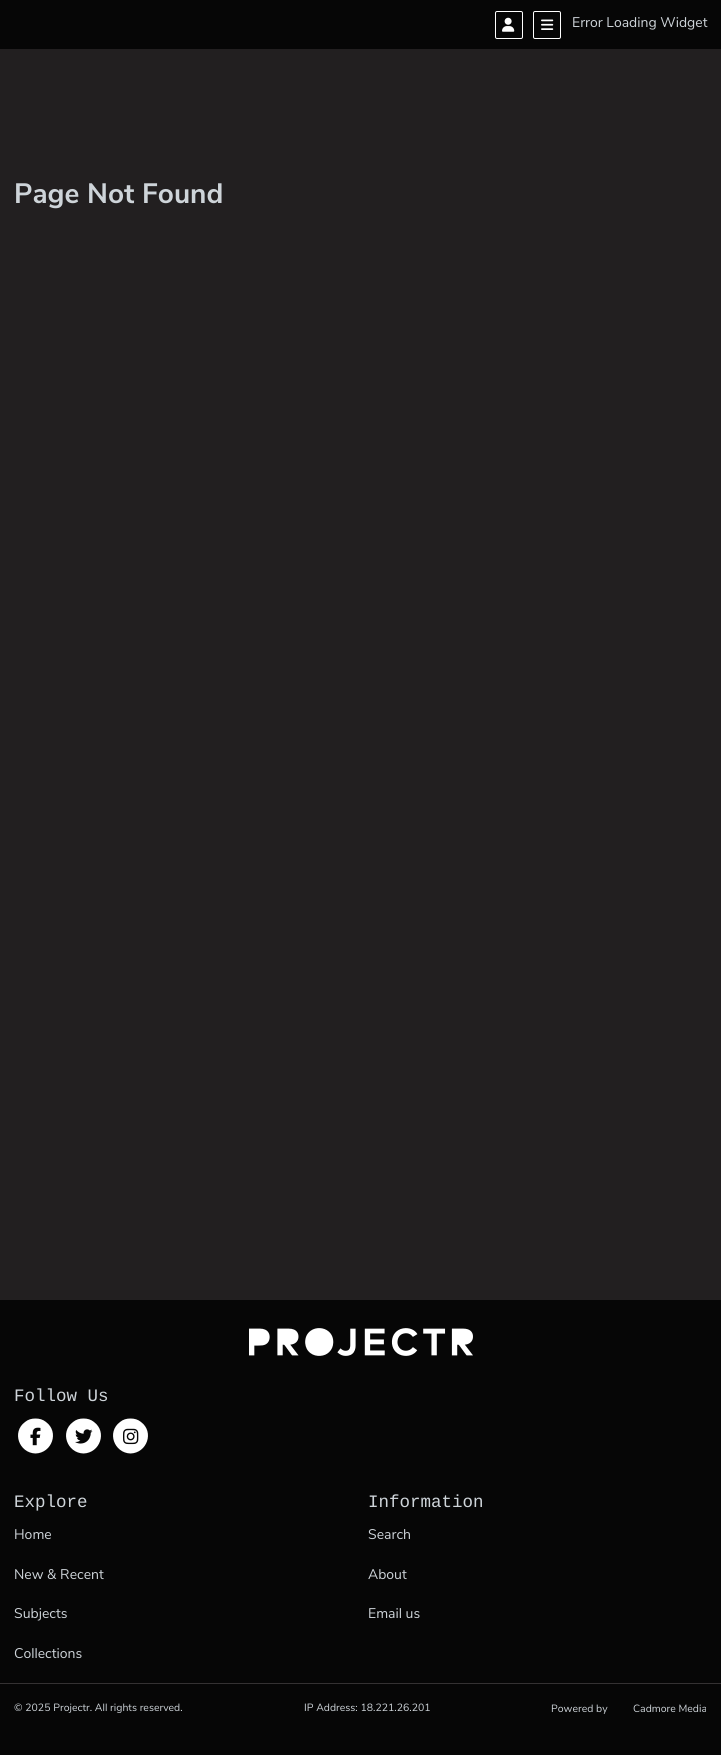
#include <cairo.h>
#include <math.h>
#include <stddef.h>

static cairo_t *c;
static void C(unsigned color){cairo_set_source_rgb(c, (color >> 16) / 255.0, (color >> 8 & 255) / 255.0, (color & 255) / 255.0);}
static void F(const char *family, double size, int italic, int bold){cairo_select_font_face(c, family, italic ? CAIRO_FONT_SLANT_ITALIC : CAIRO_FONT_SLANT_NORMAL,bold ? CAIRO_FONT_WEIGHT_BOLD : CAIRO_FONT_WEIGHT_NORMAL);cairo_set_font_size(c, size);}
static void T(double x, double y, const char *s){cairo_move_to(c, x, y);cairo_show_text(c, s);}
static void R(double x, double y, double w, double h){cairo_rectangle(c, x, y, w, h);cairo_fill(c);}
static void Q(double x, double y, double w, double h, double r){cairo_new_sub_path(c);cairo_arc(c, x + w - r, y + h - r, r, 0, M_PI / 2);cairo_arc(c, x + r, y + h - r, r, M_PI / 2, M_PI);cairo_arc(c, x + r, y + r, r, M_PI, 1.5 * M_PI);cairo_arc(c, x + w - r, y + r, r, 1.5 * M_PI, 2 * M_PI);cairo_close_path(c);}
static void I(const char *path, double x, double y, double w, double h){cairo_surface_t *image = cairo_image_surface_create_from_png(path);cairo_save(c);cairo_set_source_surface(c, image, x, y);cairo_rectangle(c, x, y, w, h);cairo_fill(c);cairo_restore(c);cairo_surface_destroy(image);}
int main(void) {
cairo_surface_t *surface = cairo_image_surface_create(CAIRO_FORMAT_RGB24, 721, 1755);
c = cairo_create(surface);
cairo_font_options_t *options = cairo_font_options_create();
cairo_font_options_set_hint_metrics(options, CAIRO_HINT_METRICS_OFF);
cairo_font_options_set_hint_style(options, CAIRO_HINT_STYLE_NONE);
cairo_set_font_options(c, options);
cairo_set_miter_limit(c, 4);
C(0x221f20);
cairo_paint(c);
C(0x060606);
R(0,0,721,49);
Q(495.5,11.5,27,27,1.5);
C(0xffffff);
cairo_set_line_width(c,1);
cairo_stroke(c);
I("1.png",502,17,13,15);
Q(533.5,11.5,27,27,1.5);
cairo_stroke(c);
I("2.png",541,19,13,11);
F("Nunito Sans",14,0,0);
C(0xced4d9);
T(572,27,"Error Loading Widget");
F("Nunito Sans",28,0,1);
T(14,203,"Page Not Found");
C(0x060606);
R(0,1300,721,455);
I("3.png",249,1328,224,28);
F("Liberation Mono",17.5,0,0);
C(0xced4d9);
T(14,1401,"Follow Us");
C(0xffffff);
cairo_new_path(c);
cairo_move_to(c,35.5,1453.5);
cairo_curve_to(c,52,1453,59.5,1432,46,1422);
cairo_curve_to(c,43,1419.5,39.5,1418.5,35.5,1418.5);
cairo_curve_to(c,31.5,1418.5,28,1419.5,25,1422);
cairo_curve_to(c,11.5,1432,19,1453,35.5,1453.5);
cairo_close_path(c);
cairo_fill(c);
I("4.png",30,1427,11,19);
cairo_new_path(c);
cairo_move_to(c,83.5,1453.5);
cairo_curve_to(c,100,1453,107.5,1432,94,1422);
cairo_curve_to(c,91,1419.5,87.5,1418.5,83.5,1418.5);
cairo_curve_to(c,79.5,1418.5,76,1419.5,73,1422);
cairo_curve_to(c,59.5,1432,67,1453,83.5,1453.5);
cairo_close_path(c);
cairo_fill(c);
I("5.png",75,1429,18,15);
cairo_new_path(c);
cairo_move_to(c,130.5,1453.5);
cairo_curve_to(c,147,1453,154.5,1432,141,1422);
cairo_curve_to(c,138,1419.5,134.5,1418.5,130.5,1418.5);
cairo_curve_to(c,126.5,1418.5,123,1419.5,120,1422);
cairo_curve_to(c,106.5,1432,114,1453,130.5,1453.5);
cairo_close_path(c);
cairo_fill(c);
I("6.png",123,1428,16,17);
C(0xced4d9);
T(14,1507,"Explore");
F("Nunito Sans",14,0,0);
T(14,1539,"Home");
T(14,1579,"New & Recent");
T(14,1618,"Subjects");
T(14,1658,"Collections");
F("Liberation Mono",17.5,0,0);
T(368,1507,"Information");
F("Nunito Sans",14,0,0);
T(368,1539,"Search");
T(368,1579,"About");
T(368,1618,"Email us");
C(0x343132);
R(0,1683,721,1);
F("Nunito Sans",10.5,0,0);
C(0xced4d9);
T(14,1711,"© 2025 Projectr. All rights reserved.");
T(304,1711,"IP Address: 18.221.26.201");
T(551,1712,"Powered by");
T(633,1712,"Cadmore Media");
cairo_surface_write_to_png(surface, "o.png");
cairo_font_options_destroy(options);
cairo_destroy(c);
cairo_surface_destroy(surface);
return 0;
}
